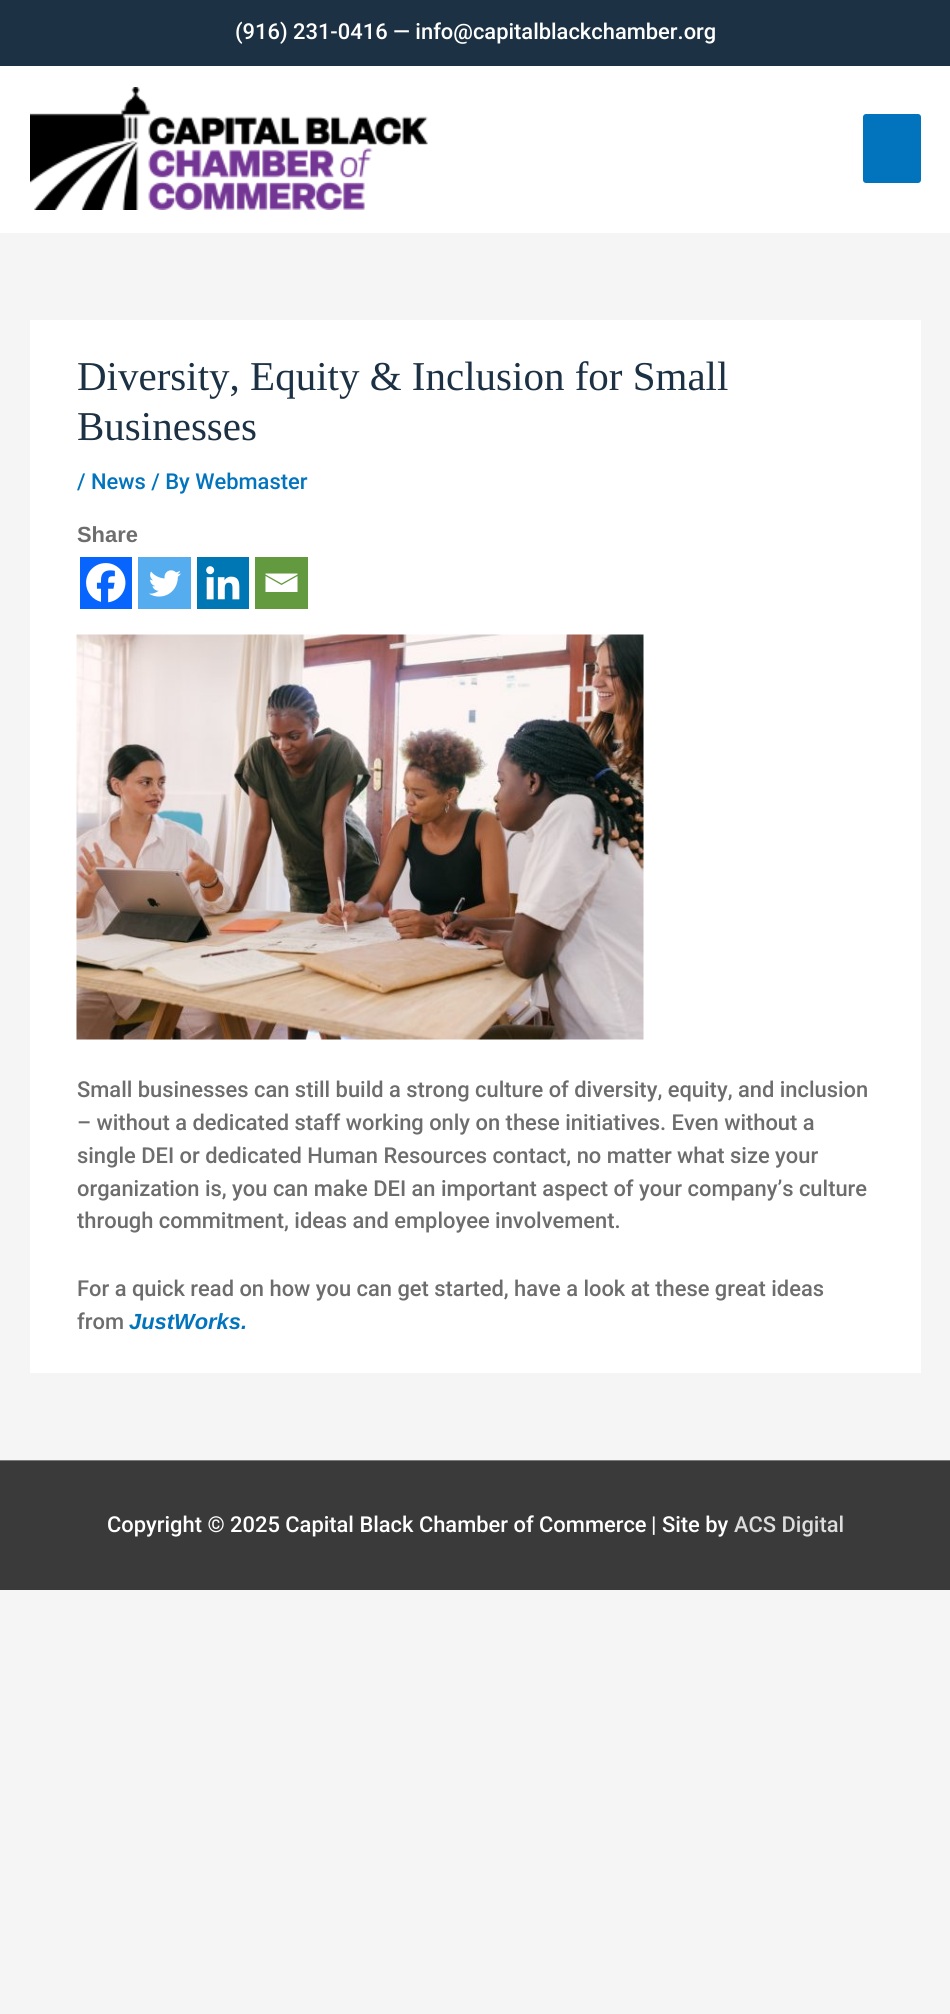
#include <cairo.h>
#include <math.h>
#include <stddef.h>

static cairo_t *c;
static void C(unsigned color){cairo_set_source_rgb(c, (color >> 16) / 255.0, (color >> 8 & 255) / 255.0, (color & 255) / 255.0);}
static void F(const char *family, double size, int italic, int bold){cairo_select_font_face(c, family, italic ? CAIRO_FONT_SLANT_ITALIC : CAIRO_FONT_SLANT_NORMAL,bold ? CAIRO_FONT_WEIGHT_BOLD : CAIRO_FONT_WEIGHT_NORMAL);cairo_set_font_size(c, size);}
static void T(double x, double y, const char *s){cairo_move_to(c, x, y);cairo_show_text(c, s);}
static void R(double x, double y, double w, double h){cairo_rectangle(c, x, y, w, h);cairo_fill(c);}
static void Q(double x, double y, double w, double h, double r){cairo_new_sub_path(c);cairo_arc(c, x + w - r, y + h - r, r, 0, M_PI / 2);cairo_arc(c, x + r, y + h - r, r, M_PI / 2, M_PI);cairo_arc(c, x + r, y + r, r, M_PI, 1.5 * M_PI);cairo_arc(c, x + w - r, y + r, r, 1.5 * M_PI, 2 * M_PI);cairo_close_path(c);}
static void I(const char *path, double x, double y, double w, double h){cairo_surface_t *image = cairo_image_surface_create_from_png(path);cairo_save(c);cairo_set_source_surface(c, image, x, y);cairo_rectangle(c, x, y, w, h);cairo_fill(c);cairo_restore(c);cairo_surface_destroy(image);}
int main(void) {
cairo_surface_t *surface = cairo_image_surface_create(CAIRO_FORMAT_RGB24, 950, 2014);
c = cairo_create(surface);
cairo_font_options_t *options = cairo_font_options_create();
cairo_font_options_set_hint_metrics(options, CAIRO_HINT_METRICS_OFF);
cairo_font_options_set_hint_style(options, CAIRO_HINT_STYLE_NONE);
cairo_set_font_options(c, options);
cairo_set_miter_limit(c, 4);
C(0xf5f5f5);
cairo_paint(c);
C(0x1c3144);
R(0,0,950,66);
F("Roboto Medium",21.9,0,0);
C(0xffffff);
T(235,39,"(916) 231-0416 — info@capitalblackchamber.org");
R(0,66,950,167);
I("1.png",30,87,398,123);
C(0x0274be);
Q(863,114,58,69,3);
cairo_fill(c);
C(0xffffff);
R(30,320,891,1053);
F("Liberation Serif",41,0,0);
C(0x1c3144);
T(77,390,"Diversity, Equity & Inclusion for Small");
T(77,440,"Businesses");
F("Roboto Medium",21.9,0,0);
C(0x0274be);
T(77,489,"/ News / By Webmaster");
F("Liberation Sans",21.9,0,1);
C(0x6d6d6d);
T(77,542,"Share");
C(0x0765fe);
R(80,557,52,52);
I("2.png",86,563,40,40);
C(0x55acee);
R(138,557,53,52);
I("3.png",149,570,32,27);
C(0x0077b5);
R(197,557,52,52);
I("4.png",206,566,34,34);
C(0x649a3f);
R(255,557,53,52);
C(0xffffff);
cairo_new_path(c);
cairo_move_to(c,264,573.5);
cairo_line_to(c,297.5,573.5);
cairo_line_to(c,297.5,574.5);
cairo_line_to(c,281.5,583.5);
cairo_line_to(c,265.5,574.5);
cairo_line_to(c,265.5,573.5);
cairo_move_to(c,265.5,576);
cairo_line_to(c,281.5,585);
cairo_line_to(c,297.5,576);
cairo_line_to(c,297.5,592);
cairo_line_to(c,265.5,592);
cairo_line_to(c,265.5,576);
cairo_fill(c);
I("5.png",76,634,568,406);
F("Roboto Medium",21.9,0,0);
C(0x6d6d6d);
T(77,1097,"Small businesses can still build a strong culture of diversity, equity, and inclusion");
T(77,1130,"– without a dedicated staff working only on these initiatives. Even without a");
T(77,1163,"single DEI or dedicated Human Resources contact, no matter what size your");
T(77,1196,"organization is, you can make DEI an important aspect of your company’s culture");
T(77,1228,"through commitment, ideas and employee involvement.");
T(77,1296,"For a quick read on how you can get started, have a look at these great ideas");
T(77,1329,"from");
F("Liberation Sans",21.9,1,1);
C(0x0274be);
T(129,1329,"JustWorks.");
C(0x7a7a7a);
R(0,1460,950,1);
C(0x3a3a3a);
R(0,1461,950,129);
F("Roboto Medium",21.9,0,0);
C(0xffffff);
T(107,1532,"Copyright © 2025 Capital Black Chamber of Commerce");
T(651,1532,"| Site by");
C(0xdddddd);
T(734,1532,"ACS Digital");
cairo_surface_write_to_png(surface, "o.png");
cairo_font_options_destroy(options);
cairo_destroy(c);
cairo_surface_destroy(surface);
return 0;
}
